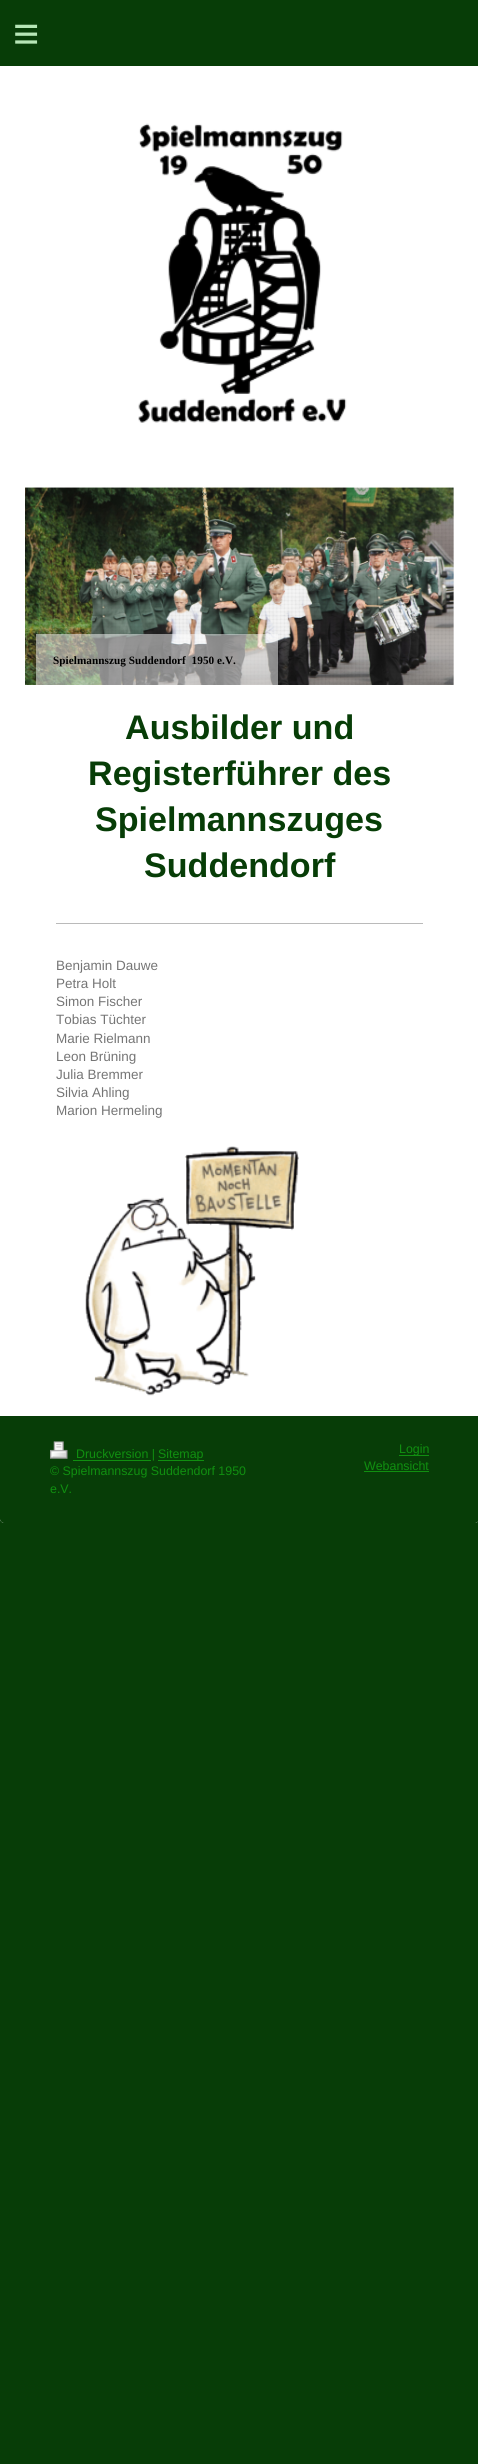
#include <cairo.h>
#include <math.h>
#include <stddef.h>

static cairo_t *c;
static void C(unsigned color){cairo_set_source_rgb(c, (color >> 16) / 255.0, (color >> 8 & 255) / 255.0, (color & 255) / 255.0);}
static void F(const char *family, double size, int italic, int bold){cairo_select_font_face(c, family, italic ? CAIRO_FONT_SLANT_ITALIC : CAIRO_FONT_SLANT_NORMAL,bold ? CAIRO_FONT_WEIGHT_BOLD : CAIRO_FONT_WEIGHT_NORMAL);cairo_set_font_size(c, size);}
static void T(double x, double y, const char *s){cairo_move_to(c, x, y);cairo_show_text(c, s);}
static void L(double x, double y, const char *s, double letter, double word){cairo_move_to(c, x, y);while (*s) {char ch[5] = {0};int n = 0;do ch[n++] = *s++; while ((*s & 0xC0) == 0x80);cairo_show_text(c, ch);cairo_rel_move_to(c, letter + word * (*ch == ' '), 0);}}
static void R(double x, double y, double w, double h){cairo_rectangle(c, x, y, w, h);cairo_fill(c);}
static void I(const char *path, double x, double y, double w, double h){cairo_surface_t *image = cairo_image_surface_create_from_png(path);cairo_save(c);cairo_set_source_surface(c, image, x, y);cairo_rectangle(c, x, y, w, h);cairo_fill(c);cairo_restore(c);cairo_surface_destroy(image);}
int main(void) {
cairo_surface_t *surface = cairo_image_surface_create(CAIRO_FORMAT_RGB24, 478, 2464);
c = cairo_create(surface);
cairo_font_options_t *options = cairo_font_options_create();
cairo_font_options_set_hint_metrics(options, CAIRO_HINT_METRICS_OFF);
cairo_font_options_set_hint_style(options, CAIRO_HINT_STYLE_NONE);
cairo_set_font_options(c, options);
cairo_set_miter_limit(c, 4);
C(0x073d07);
cairo_paint(c);
C(0xffffff);
cairo_new_path(c);
cairo_move_to(c,0,0);
cairo_line_to(c,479,0);
cairo_line_to(c,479,1519);
cairo_curve_to(c,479,1521,477,1523,475,1523);
cairo_line_to(c,4,1523);
cairo_curve_to(c,2,1523,0,1521,0,1519);
cairo_close_path(c);
cairo_fill(c);
C(0x073d07);
R(0,0,478,66);
F("Liberation Sans",45,0,0);
C(0xb6e6b6);
L(13,49,"≡",13,0);
I("1.png",138,123,209,300);
I("2.png",25,487,429,1);
C(0xeeeeee);
R(453,488,1,197);
I("3.png",25,487,429,198);
I("4.png",25,488,429,197);
cairo_set_source_rgba(c,1,1,1,0.5);
R(36,634,242,51);
F("Liberation Serif",11.2,0,1);
C(0x000000);
L(53,664,"Spielmannszug Suddendorf  1950 e.V.",.05,0);
F("Liberation Sans",34.1,0,1);
C(0x073d07);
T(125,739,"Ausbilder und");
T(88,785,"Registerführer des");
T(95,831,"Spielmannszuges");
T(144,877,"Suddendorf");
C(0xbababa);
R(56,923,367,1);
F("Liberation Sans",13.5,0,0);
C(0x757575);
T(56,970,"Benjamin Dauwe");
T(56,988,"Petra Holt");
T(56,1006,"Simon Fischer");
T(56,1024,"Tobias Tüchter");
T(56,1043,"Marie Rielmann");
T(56,1061,"Leon Brüning");
T(56,1079,"Julia Bremmer");
T(56,1097,"Silvia Ahling");
T(56,1115,"Marion Hermeling");
I("5.png",85,1146,214,250);
C(0x073d07);
cairo_new_path(c);
cairo_move_to(c,0,1416);
cairo_line_to(c,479,1416);
cairo_line_to(c,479,1519);
cairo_curve_to(c,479,1521,477,1523,475,1523);
cairo_line_to(c,4,1523);
cairo_curve_to(c,2,1523,0,1521,0,1519);
cairo_close_path(c);
cairo_fill(c);
I("6.png",50,1441,18,18);
C(0x108f10);
R(73,1460,78,1);
F("Liberation Sans",12.4,0,0);
T(76,1458,"Druckversion |");
R(158,1460,46,1);
T(158,1458,"Sitemap");
T(50,1475,"© Spielmannszug Suddendorf 1950");
T(50,1493,"e.V.");
R(399,1455,30,1);
T(399,1453,"Login");
T(364,1470,"Webansicht");
R(364,1471,65,1);
cairo_surface_write_to_png(surface, "o.png");
cairo_font_options_destroy(options);
cairo_destroy(c);
cairo_surface_destroy(surface);
return 0;
}
